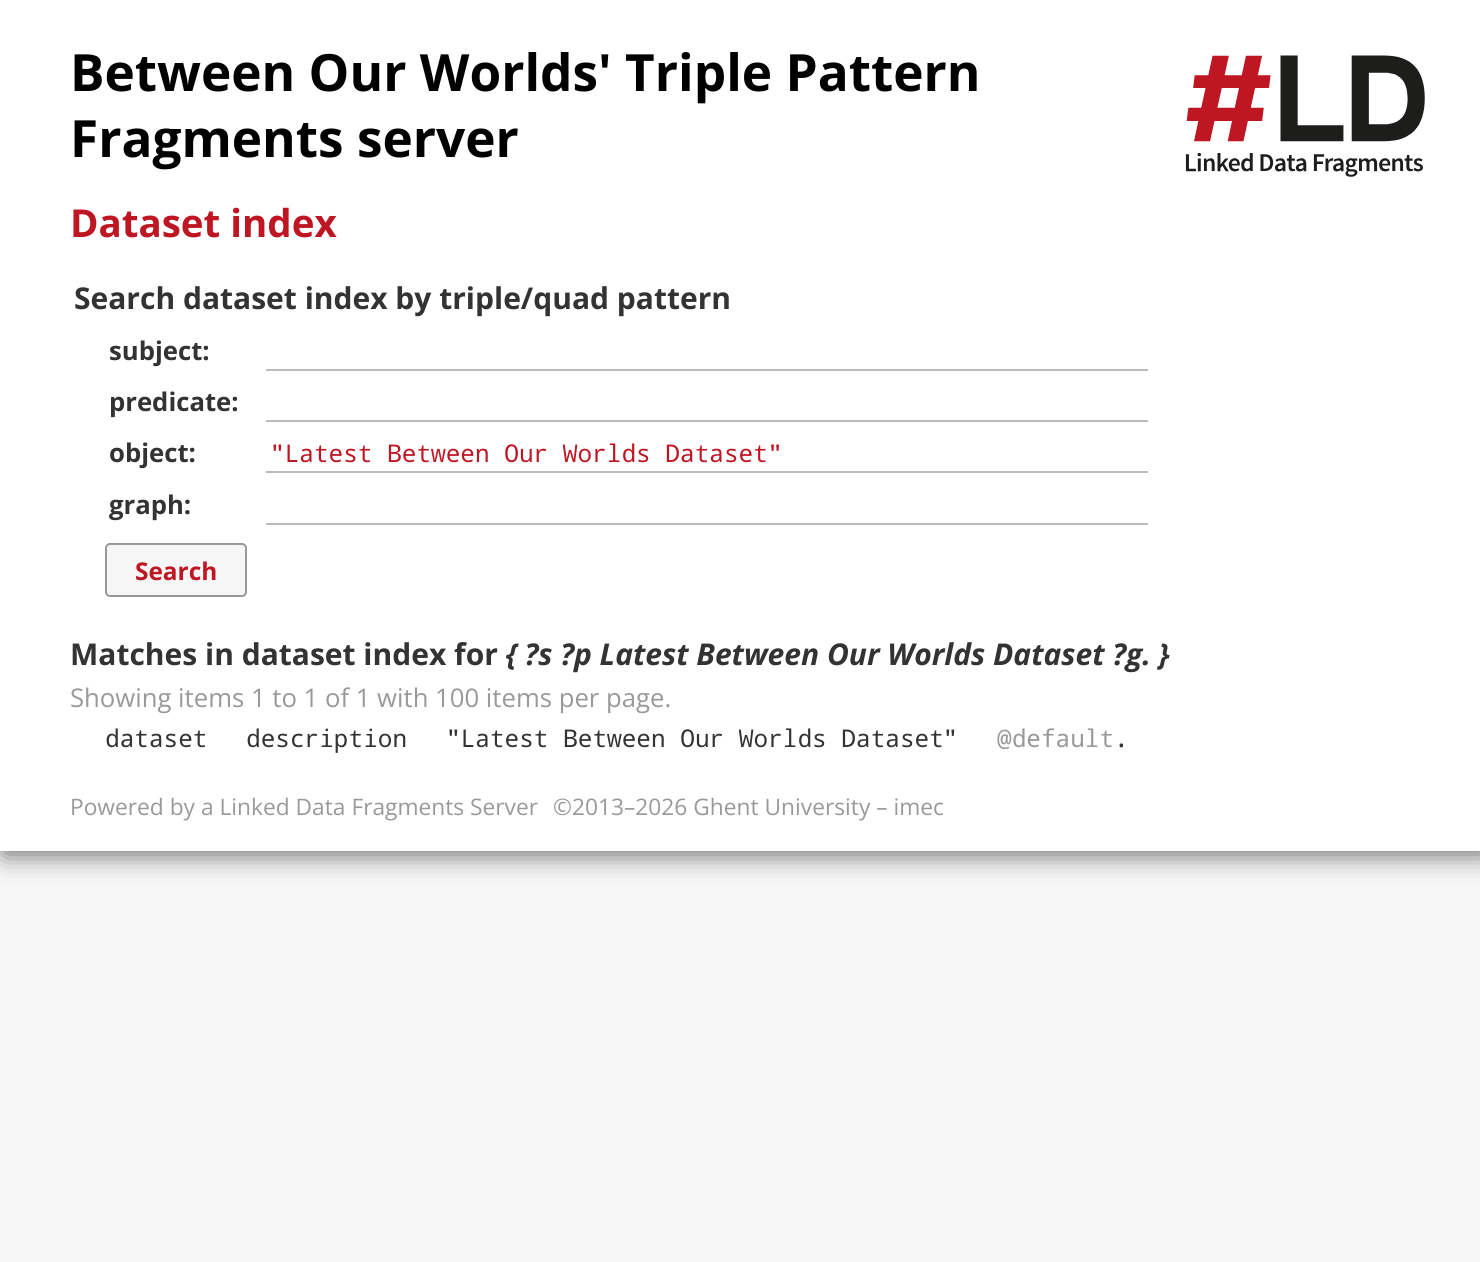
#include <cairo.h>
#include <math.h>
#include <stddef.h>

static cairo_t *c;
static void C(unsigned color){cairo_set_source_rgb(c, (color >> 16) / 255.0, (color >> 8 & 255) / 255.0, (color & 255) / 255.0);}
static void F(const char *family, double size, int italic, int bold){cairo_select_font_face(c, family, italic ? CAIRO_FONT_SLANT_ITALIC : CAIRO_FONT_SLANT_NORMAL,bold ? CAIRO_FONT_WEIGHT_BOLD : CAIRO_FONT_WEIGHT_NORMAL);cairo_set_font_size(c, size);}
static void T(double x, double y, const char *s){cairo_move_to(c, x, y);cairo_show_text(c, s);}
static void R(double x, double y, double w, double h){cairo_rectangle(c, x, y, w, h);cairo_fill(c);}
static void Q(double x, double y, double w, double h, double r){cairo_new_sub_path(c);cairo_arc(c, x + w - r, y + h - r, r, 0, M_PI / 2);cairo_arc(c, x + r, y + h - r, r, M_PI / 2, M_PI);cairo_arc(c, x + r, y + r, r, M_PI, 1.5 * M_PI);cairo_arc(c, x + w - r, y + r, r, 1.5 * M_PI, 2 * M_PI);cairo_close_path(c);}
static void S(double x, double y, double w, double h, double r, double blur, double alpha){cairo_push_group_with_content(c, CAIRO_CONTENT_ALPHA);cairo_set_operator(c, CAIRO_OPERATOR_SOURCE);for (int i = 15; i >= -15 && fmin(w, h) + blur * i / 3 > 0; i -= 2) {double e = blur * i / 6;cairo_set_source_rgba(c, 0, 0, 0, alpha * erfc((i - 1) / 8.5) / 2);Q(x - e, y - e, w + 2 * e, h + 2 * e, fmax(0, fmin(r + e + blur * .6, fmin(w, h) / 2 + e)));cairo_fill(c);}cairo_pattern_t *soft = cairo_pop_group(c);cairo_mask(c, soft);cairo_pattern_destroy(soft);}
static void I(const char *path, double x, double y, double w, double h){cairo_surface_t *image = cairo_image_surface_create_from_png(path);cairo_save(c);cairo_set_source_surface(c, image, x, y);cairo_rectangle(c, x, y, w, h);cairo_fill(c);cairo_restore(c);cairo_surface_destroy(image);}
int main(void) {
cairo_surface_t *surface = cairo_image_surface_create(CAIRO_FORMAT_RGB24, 1480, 1262);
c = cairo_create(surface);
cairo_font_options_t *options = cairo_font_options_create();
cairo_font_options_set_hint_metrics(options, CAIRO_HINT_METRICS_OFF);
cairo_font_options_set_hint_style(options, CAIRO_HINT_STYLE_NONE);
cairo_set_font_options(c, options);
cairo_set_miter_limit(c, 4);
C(0xf6f6f6);
cairo_paint(c);
C(0x323232);
S(4,4,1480,850,0,13,.75);
C(0xffffff);
R(0,0,1480,851);
F("Open Sans",51.3,0,1);
C(0x000000);
T(70,91,"Between Our Worlds' Triple Pattern");
T(70,157,"Fragments server");
I("1.png",1185,55,240,122);
F("Open Sans",38.5,0,1);
C(0xbe1622);
T(70,237,"Dataset index");
F("Open Sans",30,0,1);
C(0x333333);
T(74,309,"Search dataset index by triple/quad pattern");
F("Open Sans",25.7,0,1);
T(109,360,"subject:");
C(0xbbbbbb);
R(266,369,882,2);
C(0x333333);
T(109,411,"predicate:");
C(0xbbbbbb);
R(266,420,882,2);
C(0x333333);
T(109,462,"object:");
C(0xbbbbbb);
R(266,471,882,2);
F("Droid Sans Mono",24.4,0,0);
C(0xbe1622);
T(270,462,"\"Latest Between Our Worlds Dataset\"");
F("Open Sans",25.7,0,1);
C(0x333333);
T(109,514,"graph:");
C(0xbbbbbb);
R(266,523,882,2);
C(0xf6f6f6);
Q(106,544,140,52,4);
cairo_fill_preserve(c);
C(0x999999);
cairo_stroke(c);
F("Open Sans",24.4,0,1);
C(0xbe1622);
T(135,580,"Search");
F("Open Sans",30,0,1);
C(0x333333);
T(70,665,"Matches in dataset index for");
F("Open Sans",30,1,1);
T(506,665,"{ ?s ?p Latest Between Our Worlds Dataset ?g. }");
F("Open Sans",25.7,0,0);
C(0x999999);
T(70,707,"Showing items 1 to 1 of 1 with 100 items per page.");
F("Droid Sans Mono",24.4,0,0);
C(0x333333);
T(105,747,"dataset");
T(246,747,"description");
T(446,747,"\"Latest Between Our Worlds Dataset");
T(943,747,"\"");
C(0x999999);
T(997,747,"@default");
C(0x333333);
T(1114,747,".");
F("Open Sans",22.75,0,0);
C(0x999999);
T(70,815,"Powered by a Linked Data Fragments Server");
T(553,815,"©2013–2026 Ghent University – imec");
cairo_surface_write_to_png(surface, "o.png");
cairo_font_options_destroy(options);
cairo_destroy(c);
cairo_surface_destroy(surface);
return 0;
}
